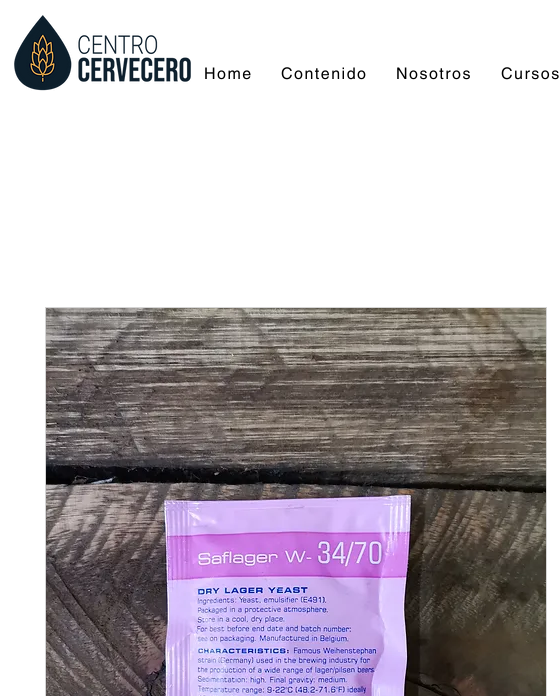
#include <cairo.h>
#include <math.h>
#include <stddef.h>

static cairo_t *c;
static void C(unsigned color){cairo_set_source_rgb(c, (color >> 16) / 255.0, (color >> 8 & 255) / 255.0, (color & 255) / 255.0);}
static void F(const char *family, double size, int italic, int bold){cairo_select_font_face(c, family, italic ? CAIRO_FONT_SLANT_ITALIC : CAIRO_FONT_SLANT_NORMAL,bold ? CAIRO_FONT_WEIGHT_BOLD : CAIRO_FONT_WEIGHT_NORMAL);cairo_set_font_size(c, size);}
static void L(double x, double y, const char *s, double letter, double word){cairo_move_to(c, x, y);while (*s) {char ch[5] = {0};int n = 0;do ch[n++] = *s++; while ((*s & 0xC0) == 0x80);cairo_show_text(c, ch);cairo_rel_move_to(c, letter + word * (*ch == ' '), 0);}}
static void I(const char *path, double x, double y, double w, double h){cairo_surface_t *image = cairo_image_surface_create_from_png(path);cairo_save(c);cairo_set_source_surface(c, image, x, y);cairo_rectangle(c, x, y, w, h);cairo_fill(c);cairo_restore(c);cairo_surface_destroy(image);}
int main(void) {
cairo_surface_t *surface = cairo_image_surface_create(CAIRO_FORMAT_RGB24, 559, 696);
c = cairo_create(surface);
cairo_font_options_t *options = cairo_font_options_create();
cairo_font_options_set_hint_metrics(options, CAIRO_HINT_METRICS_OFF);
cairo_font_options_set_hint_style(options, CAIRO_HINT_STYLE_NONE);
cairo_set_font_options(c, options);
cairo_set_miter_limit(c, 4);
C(0xffffff);
cairo_paint(c);
I("1.png",14,15,177,76);
F("helvetica",16,0,0);
C(0x000000);
L(204,79,"Home",1.5,0);
L(281,79,"Contenido",1.5,0);
L(396,79,"Nosotros",1.5,0);
L(501,79,"Cursos",1.5,0);
cairo_rectangle(c,45.5,307.5,501,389);
C(0xd5d5d5);
cairo_set_line_width(c,1);
cairo_stroke(c);
I("2.png",46,308,500,388);
cairo_surface_write_to_png(surface, "o.png");
cairo_font_options_destroy(options);
cairo_destroy(c);
cairo_surface_destroy(surface);
return 0;
}
